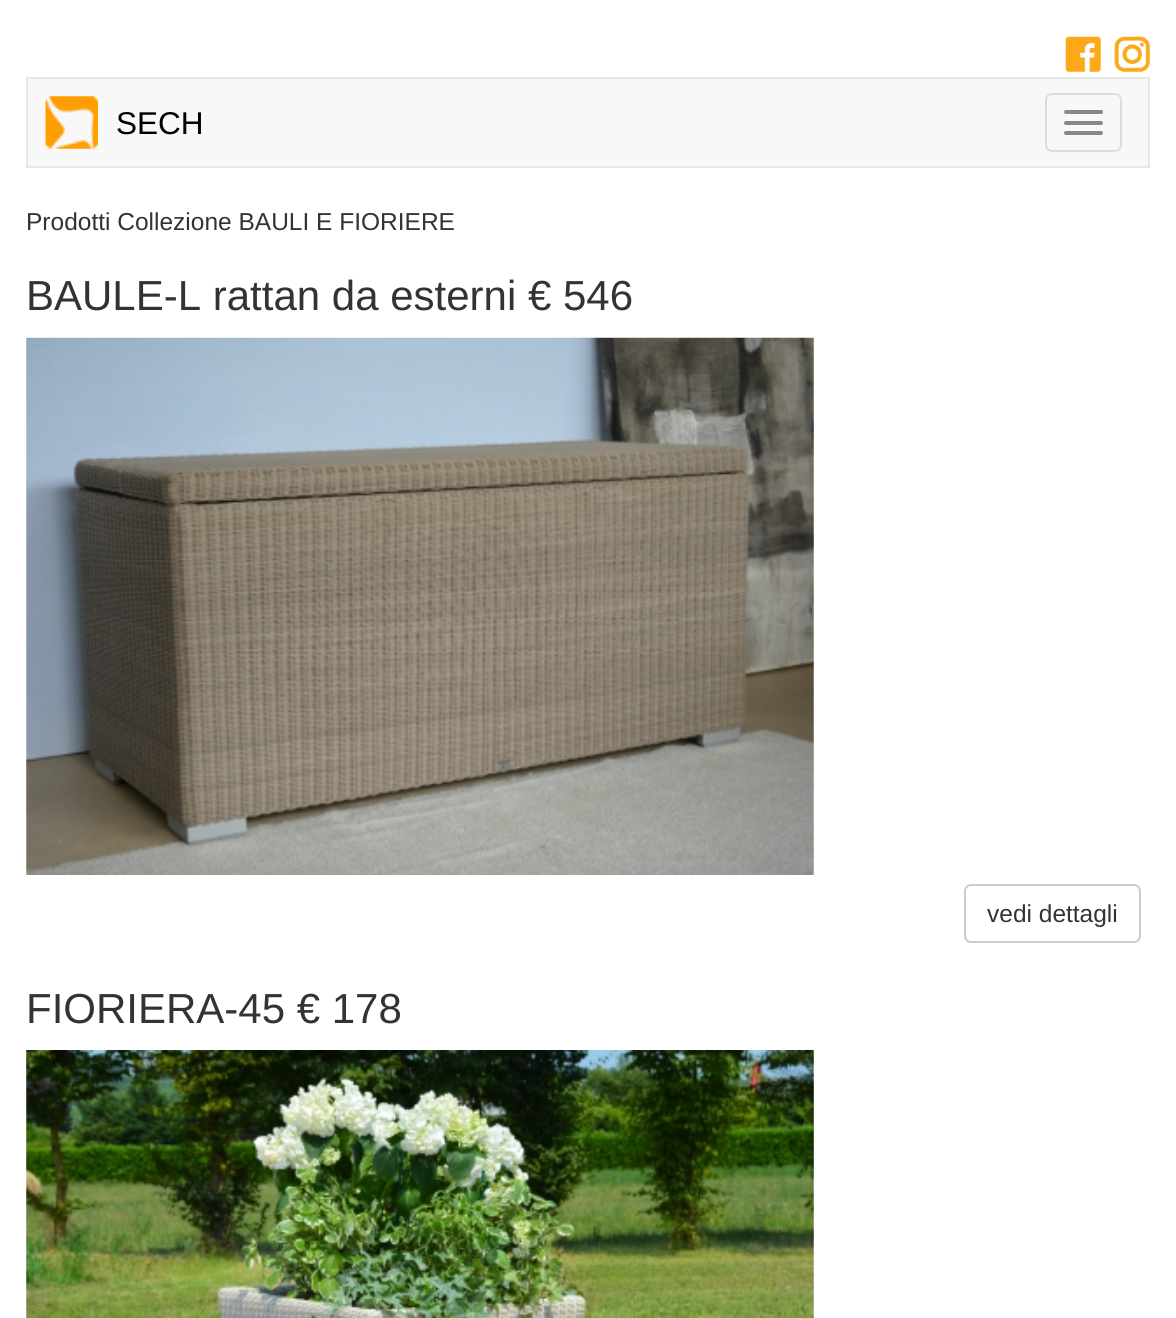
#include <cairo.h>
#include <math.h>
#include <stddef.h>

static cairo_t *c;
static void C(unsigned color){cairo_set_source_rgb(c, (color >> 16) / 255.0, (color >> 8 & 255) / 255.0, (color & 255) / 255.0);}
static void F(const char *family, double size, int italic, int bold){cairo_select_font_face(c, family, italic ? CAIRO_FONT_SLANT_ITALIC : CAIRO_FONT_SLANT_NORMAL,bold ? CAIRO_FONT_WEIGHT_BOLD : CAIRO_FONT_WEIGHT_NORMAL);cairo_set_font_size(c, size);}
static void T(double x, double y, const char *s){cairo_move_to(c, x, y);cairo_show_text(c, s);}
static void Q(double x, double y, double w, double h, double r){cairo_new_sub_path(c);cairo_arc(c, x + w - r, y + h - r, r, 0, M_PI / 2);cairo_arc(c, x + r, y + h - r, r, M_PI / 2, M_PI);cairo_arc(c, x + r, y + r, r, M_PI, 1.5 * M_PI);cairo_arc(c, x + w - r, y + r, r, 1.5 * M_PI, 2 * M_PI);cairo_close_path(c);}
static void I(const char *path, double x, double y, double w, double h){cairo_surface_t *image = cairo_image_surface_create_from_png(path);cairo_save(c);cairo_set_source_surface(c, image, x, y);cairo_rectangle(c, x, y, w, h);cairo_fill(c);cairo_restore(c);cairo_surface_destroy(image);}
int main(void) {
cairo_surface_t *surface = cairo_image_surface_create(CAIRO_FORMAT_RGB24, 1176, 1318);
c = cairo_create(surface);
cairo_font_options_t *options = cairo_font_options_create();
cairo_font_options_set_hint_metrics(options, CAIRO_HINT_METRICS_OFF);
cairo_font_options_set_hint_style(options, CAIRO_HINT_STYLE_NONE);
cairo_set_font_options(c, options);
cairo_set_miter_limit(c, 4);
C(0xffffff);
cairo_paint(c);
I("1.png",1065,36,36,36);
I("2.png",1114,36,36,36);
C(0xf8f8f8);
cairo_rectangle(c,27,78,1122,89);
cairo_fill_preserve(c);
C(0xe7e7e7);
cairo_stroke(c);
I("3.png",45,96,53,53);
F("Liberation Sans",31.5,0,0);
C(0x000000);
T(116,134,"SECH");
Q(1046,94,75,57,6);
C(0xdddddd);
cairo_stroke(c);
C(0x888888);
Q(1064,110,39,4,2);
cairo_fill(c);
Q(1064,121,39,4,2);
cairo_fill(c);
Q(1064,131,39,4,2);
cairo_fill(c);
F("Liberation Sans",24.5,0,0);
C(0x333333);
T(26,230,"Prodotti Collezione BAULI E FIORIERE");
F("Liberation Sans",42,0,0);
T(26,310,"BAULE-L rattan da esterni € 546");
I("4.png",26,337,788,538);
Q(965,885,175,57,6);
C(0xcccccc);
cairo_stroke(c);
F("Liberation Sans",24.5,0,0);
C(0x333333);
T(987,922,"vedi dettagli");
F("Liberation Sans",42,0,0);
T(26,1023,"FIORIERA-45 € 178");
I("5.png",26,1050,788,268);
cairo_surface_write_to_png(surface, "o.png");
cairo_font_options_destroy(options);
cairo_destroy(c);
cairo_surface_destroy(surface);
return 0;
}
